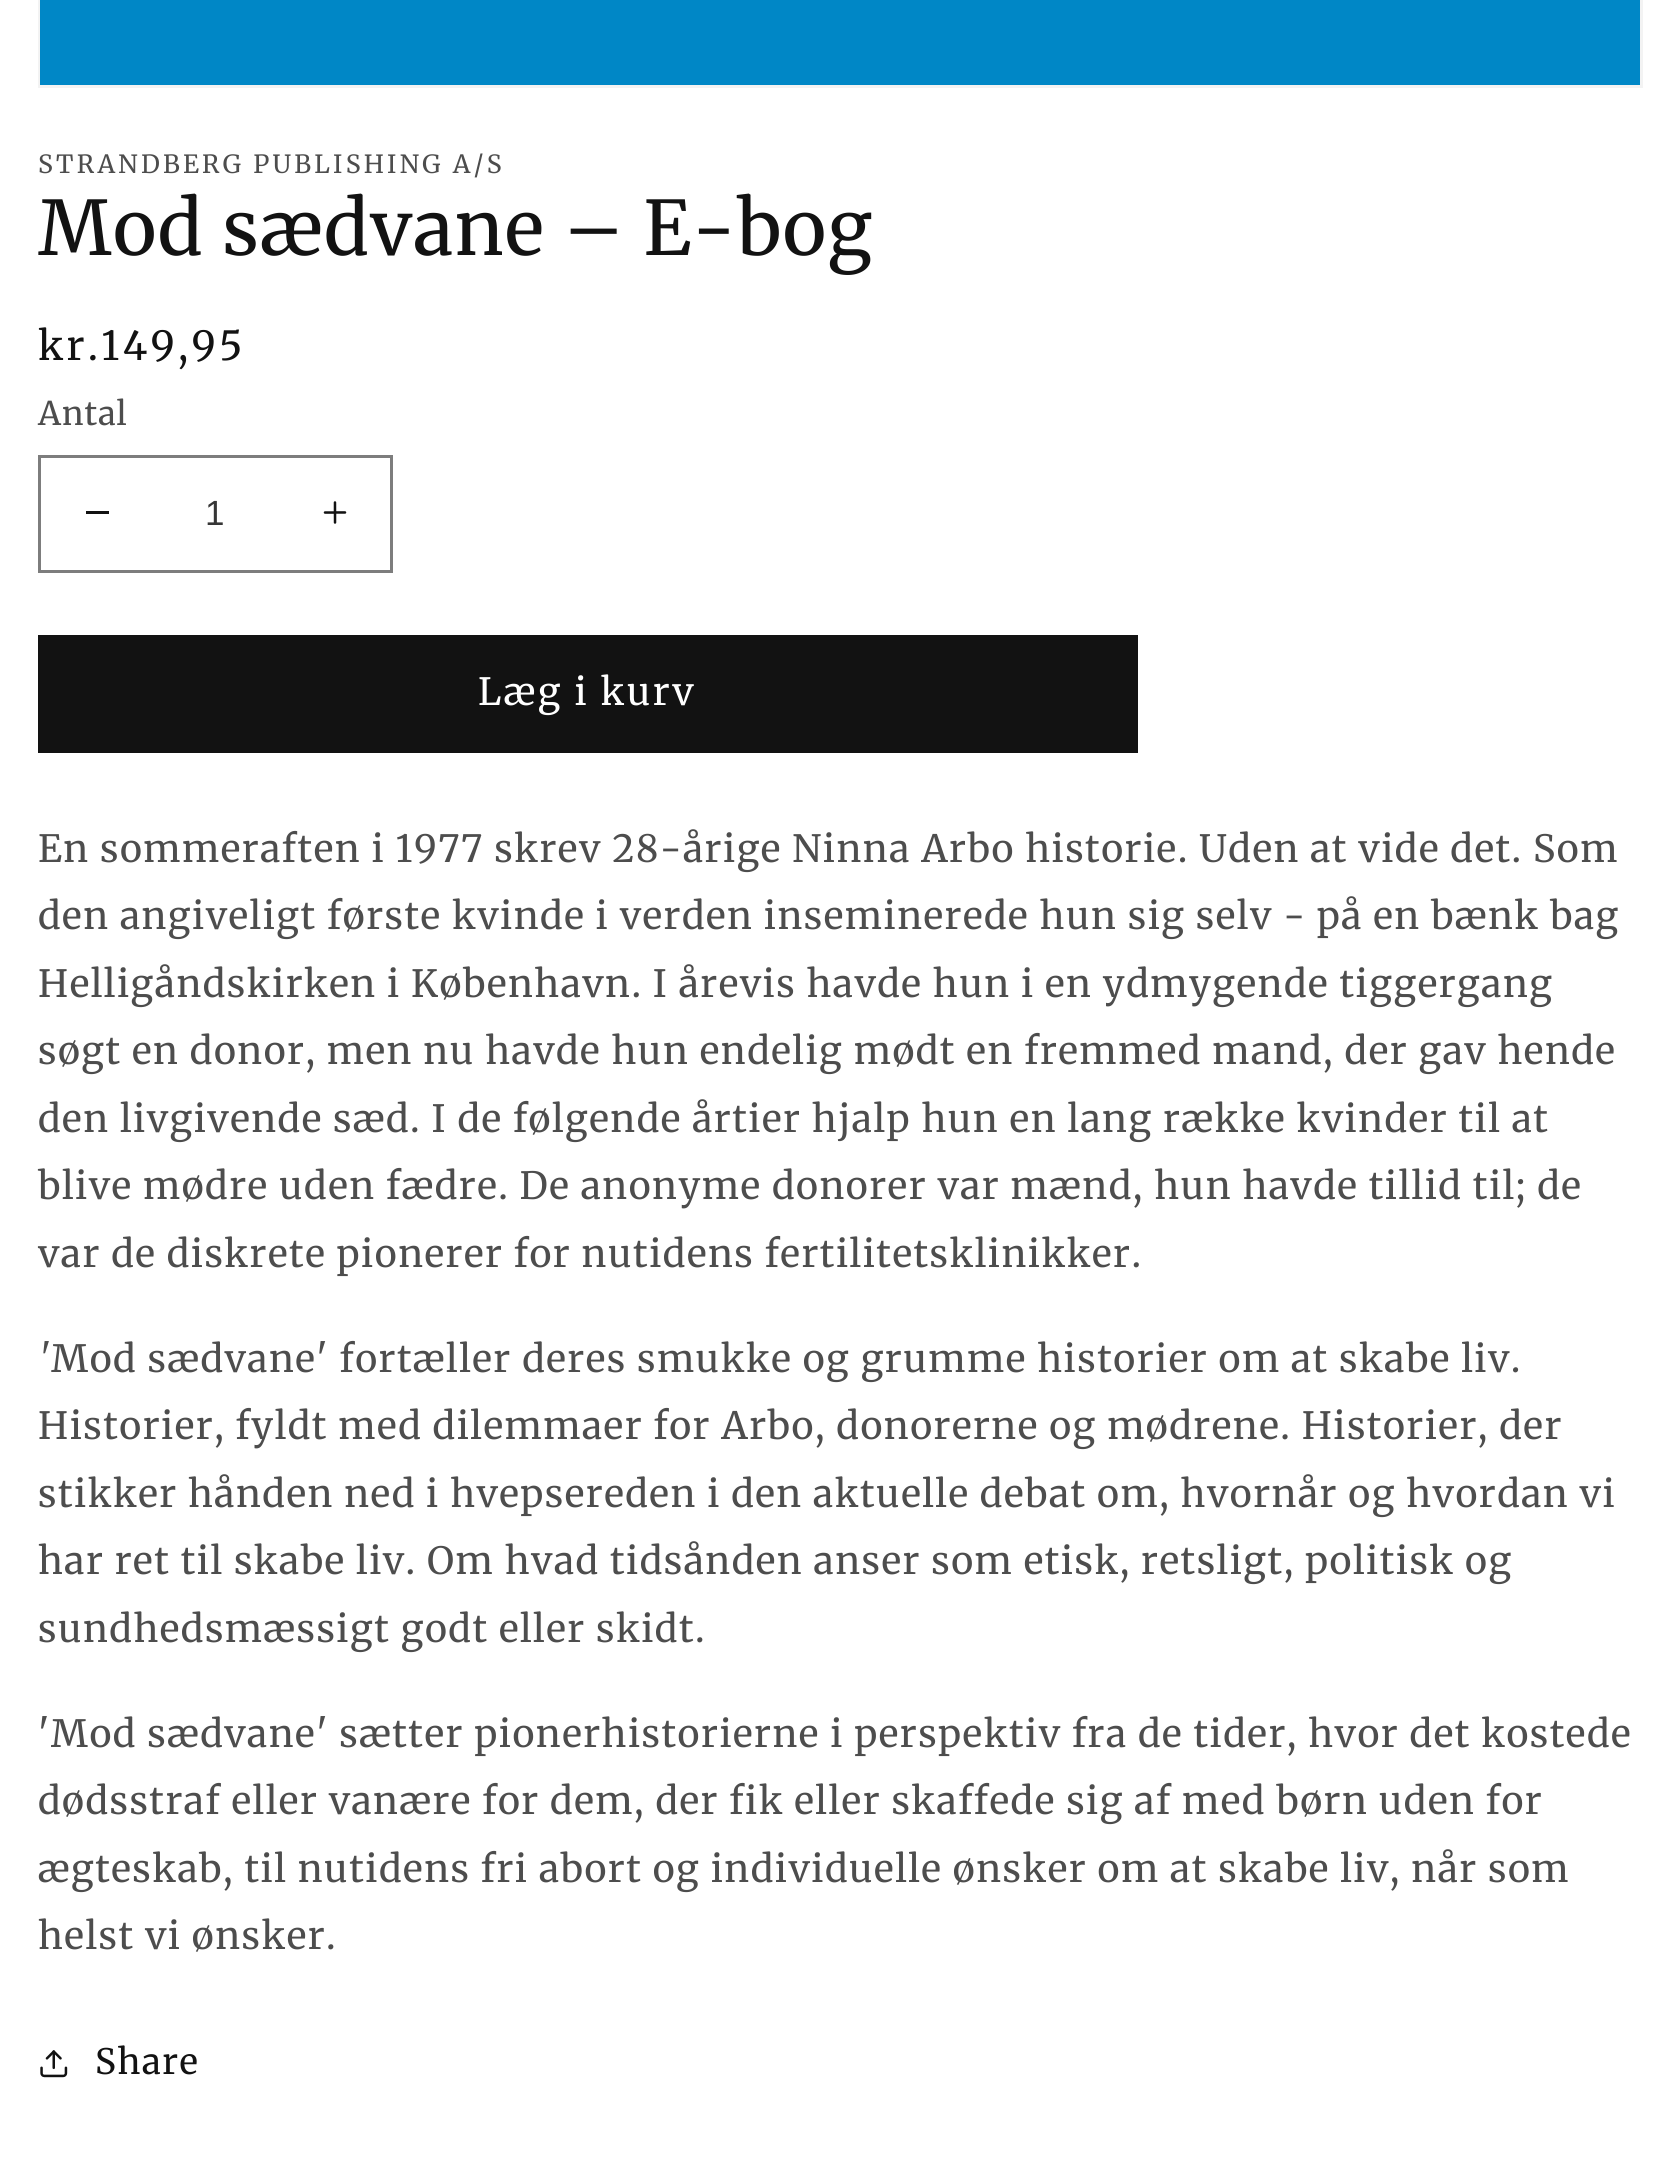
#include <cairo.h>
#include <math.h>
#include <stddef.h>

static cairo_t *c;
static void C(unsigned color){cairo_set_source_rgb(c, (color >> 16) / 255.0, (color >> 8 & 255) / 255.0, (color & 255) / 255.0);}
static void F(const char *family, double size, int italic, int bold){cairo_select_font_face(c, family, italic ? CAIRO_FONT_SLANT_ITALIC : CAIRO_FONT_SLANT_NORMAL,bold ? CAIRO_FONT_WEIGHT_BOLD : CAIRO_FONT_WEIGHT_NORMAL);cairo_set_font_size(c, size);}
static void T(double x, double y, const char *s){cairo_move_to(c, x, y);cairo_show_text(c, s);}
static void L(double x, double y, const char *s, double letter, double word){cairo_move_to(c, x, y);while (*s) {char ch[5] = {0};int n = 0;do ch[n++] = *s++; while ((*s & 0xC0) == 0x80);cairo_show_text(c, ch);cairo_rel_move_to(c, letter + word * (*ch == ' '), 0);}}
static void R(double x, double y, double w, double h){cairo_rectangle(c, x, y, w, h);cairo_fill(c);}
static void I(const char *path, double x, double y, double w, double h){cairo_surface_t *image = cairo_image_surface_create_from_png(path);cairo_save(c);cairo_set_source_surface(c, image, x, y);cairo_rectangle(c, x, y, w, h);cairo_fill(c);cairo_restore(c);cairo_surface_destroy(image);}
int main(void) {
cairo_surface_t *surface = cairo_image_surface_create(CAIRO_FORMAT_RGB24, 1680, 2157);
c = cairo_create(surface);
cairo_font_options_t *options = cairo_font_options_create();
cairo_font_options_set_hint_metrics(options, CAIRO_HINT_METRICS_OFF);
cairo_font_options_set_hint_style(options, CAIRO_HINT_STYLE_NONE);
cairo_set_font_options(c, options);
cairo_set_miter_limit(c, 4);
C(0xffffff);
cairo_paint(c);
cairo_rectangle(c,39.5,-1.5,1602,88);
C(0xf3f3f3);
cairo_set_line_width(c,3);
cairo_stroke(c);
C(0x0087c6);
R(40,0,1600,85);
F("Merriweather",25,0,0);
C(0x4d4d4d);
L(38,173,"STRANDBERG PUBLISHING A/S",3.25,0);
F("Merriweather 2",75,0,0);
C(0x121212);
L(38,255,"Mod sædvane – E-bog",1.5,0);
F("Merriweather",40,0,0);
L(38,360,"kr.149,95",3.25,0);
F("Merriweather",32.5,0,0);
C(0x4d4d4d);
L(38,425,"Antal",1,0);
C(0x121212);
R(86,511,23,3);
I("1.png",323,501,24,23);
cairo_rectangle(c,39.5,456.5,352,115);
C(0x7d7d7d);
cairo_stroke(c);
F("Liberation Sans",35,0,0);
C(0x363636);
T(205,525,"1");
C(0x121212);
R(38,635,1100,118);
F("Merriweather",37.5,0,0);
C(0xffffff);
L(478,705,"Læg i kurv",2.5,0);
C(0x4d4d4d);
L(38,862,"En sommeraften i 1977 skrev 28-årige Ninna Arbo historie. Uden at vide det. Som",1.5,0);
L(38,929,"den angiveligt første kvinde i verden inseminerede hun sig selv - på en bænk bag",1.5,0);
L(38,997,"Helligåndskirken i København. I årevis havde hun i en ydmygende tiggergang",1.5,0);
L(38,1064,"søgt en donor, men nu havde hun endelig mødt en fremmed mand, der gav hende",1.5,0);
L(38,1132,"den livgivende sæd. I de følgende årtier hjalp hun en lang række kvinder til at",1.5,0);
L(38,1199,"blive mødre uden fædre. De anonyme donorer var mænd, hun havde tillid til; de",1.5,0);
L(38,1267,"var de diskrete pionerer for nutidens fertilitetsklinikker.",1.5,0);
F("Merriweather",37.5,1,0);
L(38,1372,"'",1.5,0);
F("Merriweather",37.5,0,0);
L(51,1372,"Mod sædvane' fortæller deres smukke og grumme historier om at skabe liv.",1.5,0);
L(38,1439,"Historier, fyldt med dilemmaer for Arbo, donorerne og mødrene. Historier, der",1.5,0);
L(38,1507,"stikker hånden ned i hvepsereden i den aktuelle debat om, hvornår og hvordan vi",1.5,0);
L(38,1574,"har ret til skabe liv. Om hvad tidsånden anser som etisk, retsligt, politisk og",1.5,0);
L(38,1642,"sundhedsmæssigt godt eller skidt.",1.5,0);
L(38,1747,"'Mod sædvane' sætter pionerhistorierne i perspektiv fra de tider, hvor det kostede",1.5,0);
L(38,1814,"dødsstraf eller vanære for dem, der fik eller skaffede sig af med børn uden for",1.5,0);
L(38,1882,"ægteskab, til nutidens fri abort og individuelle ønsker om at skabe liv, når som",1.5,0);
L(38,1949,"helst vi ønsker.",1.5,0);
I("2.png",40,2050,28,28);
F("Merriweather",35,0,0);
C(0x121212);
L(95,2074,"Share",1.5,0);
cairo_surface_write_to_png(surface, "o.png");
cairo_font_options_destroy(options);
cairo_destroy(c);
cairo_surface_destroy(surface);
return 0;
}
